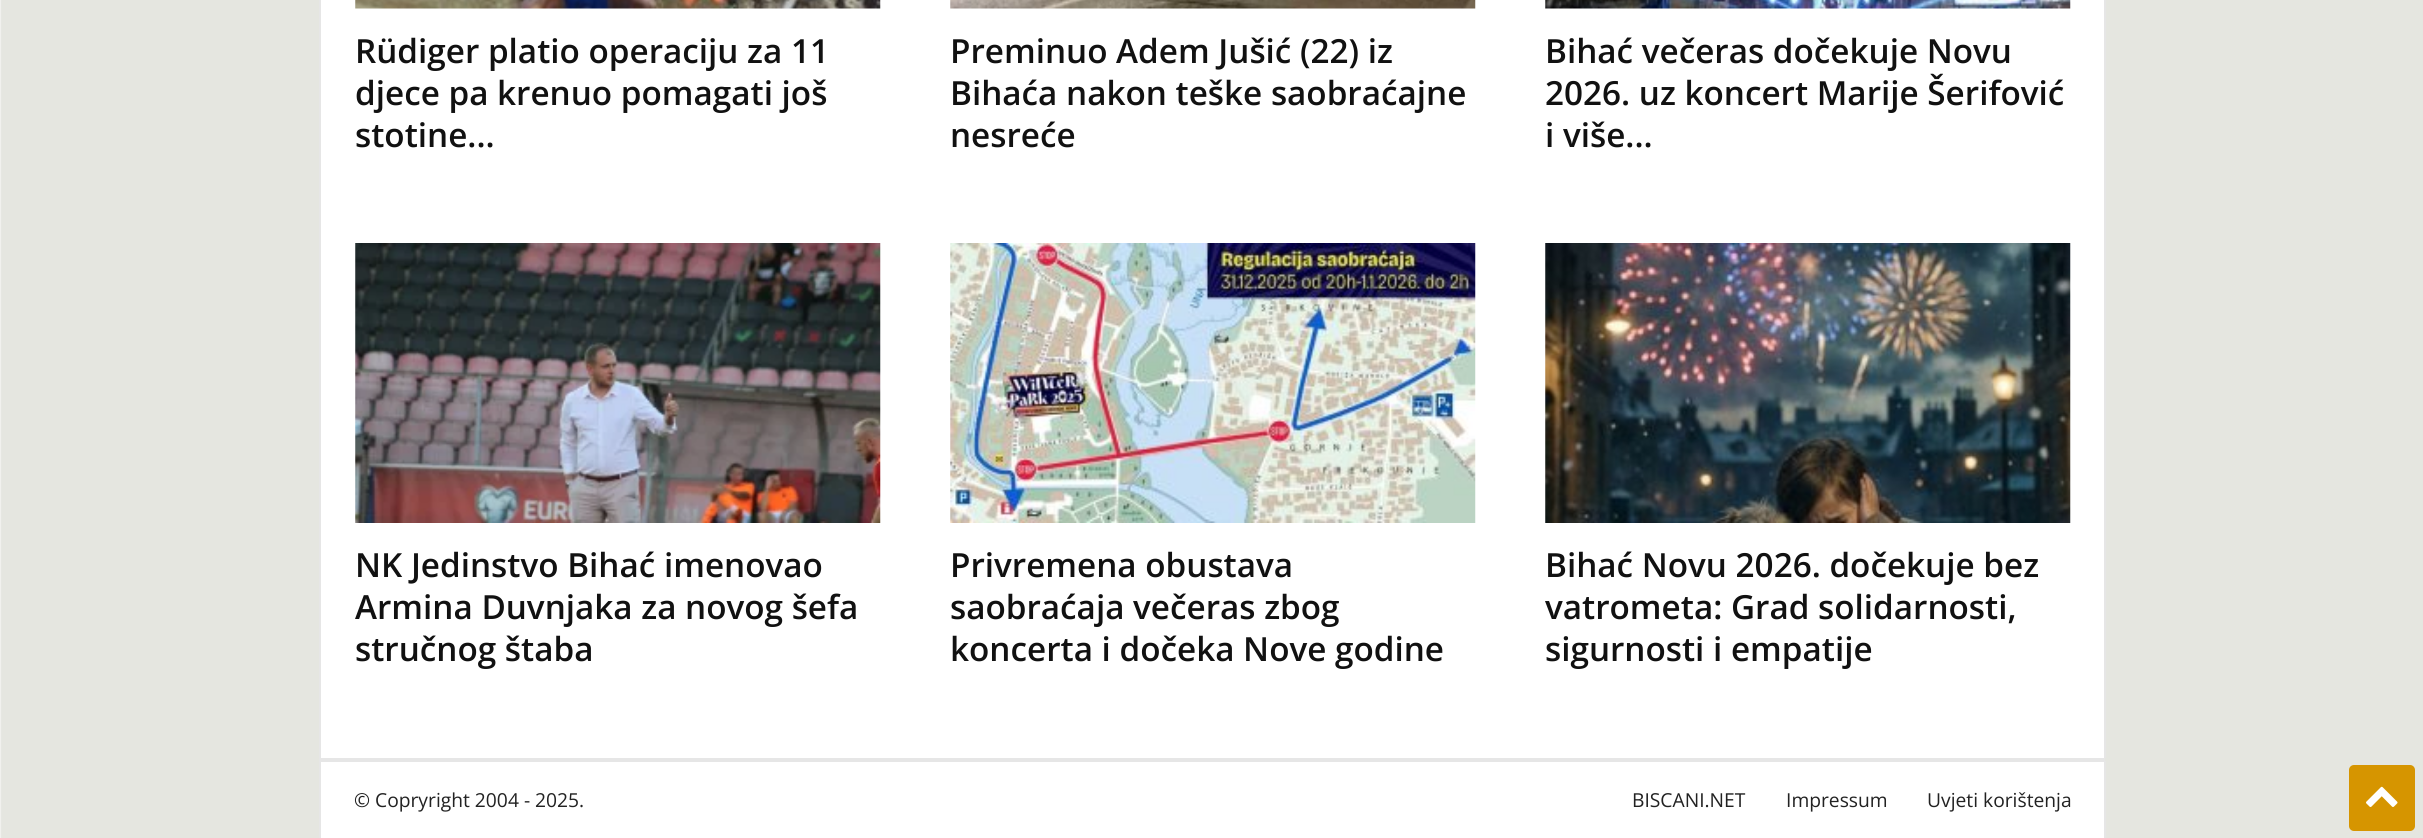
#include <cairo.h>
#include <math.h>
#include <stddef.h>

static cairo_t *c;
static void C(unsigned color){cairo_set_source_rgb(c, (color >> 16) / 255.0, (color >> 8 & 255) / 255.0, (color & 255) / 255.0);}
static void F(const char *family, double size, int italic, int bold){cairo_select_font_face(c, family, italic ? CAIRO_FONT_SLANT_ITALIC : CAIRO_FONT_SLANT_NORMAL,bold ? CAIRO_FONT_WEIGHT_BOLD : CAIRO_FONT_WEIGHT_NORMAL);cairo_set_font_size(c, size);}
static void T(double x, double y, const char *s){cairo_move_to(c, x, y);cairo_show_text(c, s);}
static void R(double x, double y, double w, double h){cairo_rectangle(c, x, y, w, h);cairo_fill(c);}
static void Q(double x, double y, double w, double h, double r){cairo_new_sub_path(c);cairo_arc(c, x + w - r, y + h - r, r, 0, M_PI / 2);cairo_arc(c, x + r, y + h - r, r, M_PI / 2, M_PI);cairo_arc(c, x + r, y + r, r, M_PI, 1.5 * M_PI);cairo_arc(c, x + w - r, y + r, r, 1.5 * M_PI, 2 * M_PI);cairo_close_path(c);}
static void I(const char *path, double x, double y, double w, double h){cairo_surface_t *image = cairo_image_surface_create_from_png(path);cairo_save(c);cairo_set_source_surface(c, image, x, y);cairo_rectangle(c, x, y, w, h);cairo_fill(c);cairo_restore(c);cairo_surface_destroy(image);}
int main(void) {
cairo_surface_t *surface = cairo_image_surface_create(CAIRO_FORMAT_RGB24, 2423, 838);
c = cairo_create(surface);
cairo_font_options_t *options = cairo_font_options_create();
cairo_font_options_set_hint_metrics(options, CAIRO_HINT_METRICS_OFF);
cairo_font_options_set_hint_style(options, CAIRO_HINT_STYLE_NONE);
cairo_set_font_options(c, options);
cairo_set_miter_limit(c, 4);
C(0xffffff);
cairo_paint(c);
I("1.png",0,0,2423,838);
C(0xffffff);
R(321,0,1783,758);
C(0xe6e6e6);
R(319,0,2,758);
I("2.png",355,0,526,9);
F("Open Sans SemiBold",33.25,0,0);
C(0x111111);
T(355,63,"Rüdiger platio operaciju za 11");
T(355,105,"djece pa krenuo pomagati još");
T(355,147,"stotine...");
I("3.png",950,0,526,9);
T(950,63,"Preminuo Adem Jušić (22) iz");
T(950,105,"Bihaća nakon teške saobraćajne");
T(950,147,"nesreće");
I("4.png",1545,0,526,9);
T(1545,63,"Bihać večeras dočekuje Novu");
T(1545,105,"2026. uz koncert Marije Šerifović");
T(1545,147,"i više...");
I("5.png",355,243,526,280);
T(355,577,"NK Jedinstvo Bihać imenovao");
T(355,619,"Armina Duvnjaka za novog šefa");
T(355,661,"stručnog štaba");
I("6.png",950,243,526,280);
T(950,577,"Privremena obustava");
T(950,619,"saobraćaja večeras zbog");
T(950,661,"koncerta i dočeka Nove godine");
I("7.png",1545,243,526,280);
T(1545,577,"Bihać Novu 2026. dočekuje bez");
T(1545,619,"vatrometa: Grad solidarnosti,");
T(1545,661,"sigurnosti i empatije");
C(0xe6e6e6);
R(2104,0,2,758);
C(0xffffff);
R(321,762,1783,76);
C(0xe6e6e6);
R(319,758,1786,4);
R(319,761,2,77);
F("Open Sans",19.25,0,0);
C(0x222222);
T(354,807,"© Copryright 2004 - 2025.");
T(1632,807,"BISCANI.NET");
T(1786,807,"Impressum");
T(1927,807,"Uvjeti korištenja");
C(0xe6e6e6);
R(2104,761,2,77);
C(0xd69500);
Q(2349,765,66,66,5);
cairo_fill(c);
I("8.png",2366,786,32,21);
cairo_surface_write_to_png(surface, "o.png");
cairo_font_options_destroy(options);
cairo_destroy(c);
cairo_surface_destroy(surface);
return 0;
}
